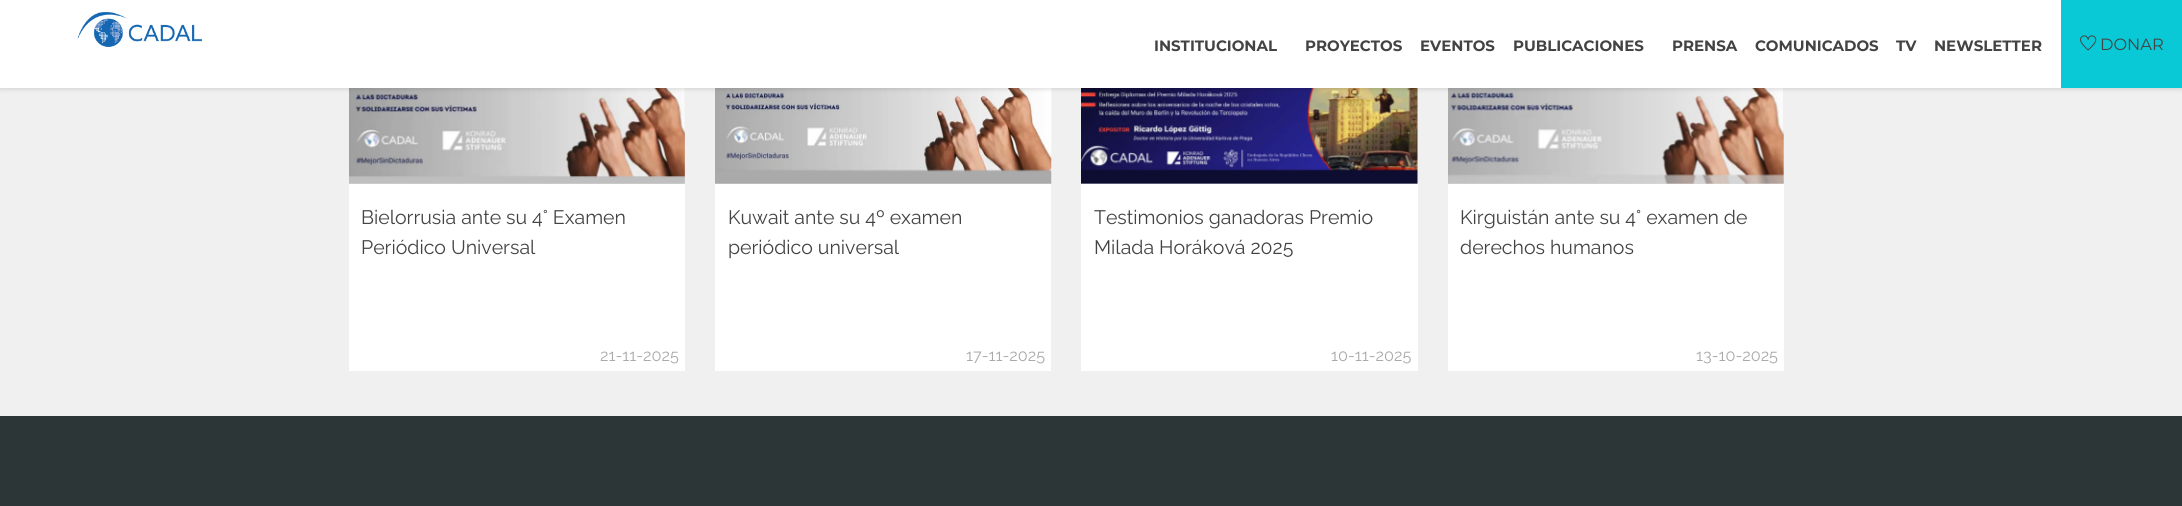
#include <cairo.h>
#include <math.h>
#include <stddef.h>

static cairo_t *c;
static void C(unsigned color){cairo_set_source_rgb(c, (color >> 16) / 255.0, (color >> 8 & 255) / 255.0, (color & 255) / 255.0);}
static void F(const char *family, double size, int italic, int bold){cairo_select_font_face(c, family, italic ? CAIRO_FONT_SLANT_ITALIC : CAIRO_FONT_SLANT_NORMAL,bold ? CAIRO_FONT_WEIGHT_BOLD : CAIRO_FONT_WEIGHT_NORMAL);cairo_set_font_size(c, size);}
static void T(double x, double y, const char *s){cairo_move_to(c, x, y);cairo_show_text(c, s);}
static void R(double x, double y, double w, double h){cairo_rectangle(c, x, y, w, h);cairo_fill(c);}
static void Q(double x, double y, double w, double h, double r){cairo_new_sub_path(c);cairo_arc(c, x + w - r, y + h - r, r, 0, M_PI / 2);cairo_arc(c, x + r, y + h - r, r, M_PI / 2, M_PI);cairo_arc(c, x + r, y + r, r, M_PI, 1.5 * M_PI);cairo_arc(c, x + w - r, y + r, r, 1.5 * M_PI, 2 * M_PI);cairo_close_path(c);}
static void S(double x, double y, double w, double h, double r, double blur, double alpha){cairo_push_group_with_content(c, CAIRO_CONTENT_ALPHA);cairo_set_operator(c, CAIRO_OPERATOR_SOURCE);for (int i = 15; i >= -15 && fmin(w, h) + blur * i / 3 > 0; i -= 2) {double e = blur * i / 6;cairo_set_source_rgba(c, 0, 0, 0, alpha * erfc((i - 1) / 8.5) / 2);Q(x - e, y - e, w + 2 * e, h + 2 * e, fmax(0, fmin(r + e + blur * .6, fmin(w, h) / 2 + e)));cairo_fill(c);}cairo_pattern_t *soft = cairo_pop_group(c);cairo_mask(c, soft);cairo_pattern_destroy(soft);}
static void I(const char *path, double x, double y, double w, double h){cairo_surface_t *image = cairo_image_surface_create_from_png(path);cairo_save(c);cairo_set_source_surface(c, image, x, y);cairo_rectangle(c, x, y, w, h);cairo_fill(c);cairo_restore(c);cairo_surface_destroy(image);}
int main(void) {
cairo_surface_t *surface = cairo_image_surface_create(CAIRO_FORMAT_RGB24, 2182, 506);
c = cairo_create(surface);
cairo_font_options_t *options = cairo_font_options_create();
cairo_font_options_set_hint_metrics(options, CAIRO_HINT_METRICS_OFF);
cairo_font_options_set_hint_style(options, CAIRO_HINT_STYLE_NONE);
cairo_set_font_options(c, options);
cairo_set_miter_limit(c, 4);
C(0xf1f0f0);
cairo_paint(c);
C(0xdddddd);
R(349,88,336,96);
I("3.png",349,88,336,96);
R(715,183,336,1);
I("4.png",715,88,337,96);
R(1081,88,337,96);
I("5.png",1081,88,337,96);
R(1448,88,336,96);
I("6.png",1448,88,336,96);
C(0x000000);
S(0,3,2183,87,0,2,.1);
C(0xffffff);
R(0,0,2061,88);
I("1.png",77,12,125,35);
F("Montserrat",15,0,1);
C(0x434343);
T(1154,51,"INSTITUCIONAL");
T(1305,51,"PROYECTOS");
T(1420,51,"EVENTOS");
T(1513,51,"PUBLICACIONES");
T(1672,51,"PRENSA");
T(1755,51,"COMUNICADOS");
T(1896,51,"TV");
T(1934,51,"NEWSLETTER");
C(0x08c9d5);
R(2061,0,121,88);
I("2.png",2080,35,17,16);
F("Montserrat",16.25,0,0);
C(0x434343);
T(2100,50,"DONAR");
C(0xffffff);
R(349,184,336,187);
F("Raleway",19.5,0,0);
C(0x434343);
T(361,224,"Bielorrusia ante su 4° Examen");
T(361,254,"Periódico Universal");
F("Raleway",16.25,0,0);
C(0xaaaaaa);
T(600,361,"21-11-2025");
C(0xffffff);
R(715,184,336,187);
F("Raleway",19.5,0,0);
C(0x434343);
T(728,224,"Kuwait ante su 4º examen");
T(728,254,"periódico universal");
F("Raleway",16.25,0,0);
C(0xaaaaaa);
T(966,361,"17-11-2025");
C(0xffffff);
R(1081,184,337,187);
F("Raleway",19.5,0,0);
C(0x434343);
T(1094,224,"Testimonios ganadoras Premio");
T(1094,254,"Milada Horáková 2025");
F("Raleway",16.25,0,0);
C(0xaaaaaa);
T(1331,361,"10-11-2025");
C(0xffffff);
R(1448,184,336,187);
F("Raleway",19.5,0,0);
C(0x434343);
T(1460,224,"Kirguistán ante su 4° examen de");
T(1460,254,"derechos humanos");
F("Raleway",16.25,0,0);
C(0xaaaaaa);
T(1696,361,"13-10-2025");
C(0x2c3637);
R(0,416,2182,90);
cairo_surface_write_to_png(surface, "o.png");
cairo_font_options_destroy(options);
cairo_destroy(c);
cairo_surface_destroy(surface);
return 0;
}
